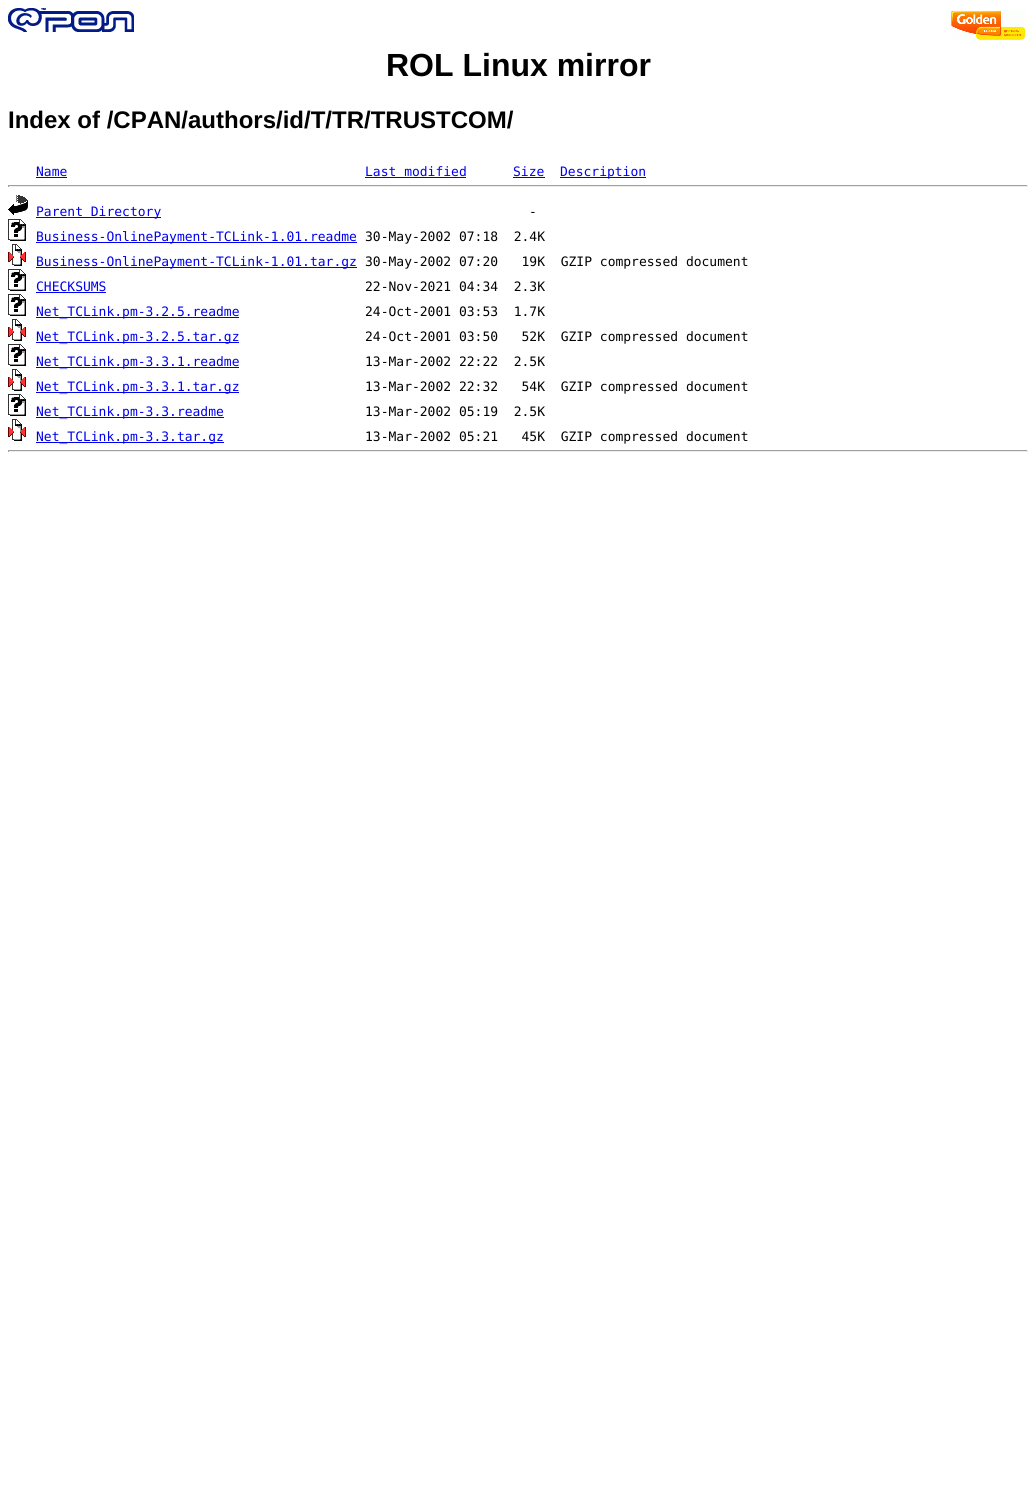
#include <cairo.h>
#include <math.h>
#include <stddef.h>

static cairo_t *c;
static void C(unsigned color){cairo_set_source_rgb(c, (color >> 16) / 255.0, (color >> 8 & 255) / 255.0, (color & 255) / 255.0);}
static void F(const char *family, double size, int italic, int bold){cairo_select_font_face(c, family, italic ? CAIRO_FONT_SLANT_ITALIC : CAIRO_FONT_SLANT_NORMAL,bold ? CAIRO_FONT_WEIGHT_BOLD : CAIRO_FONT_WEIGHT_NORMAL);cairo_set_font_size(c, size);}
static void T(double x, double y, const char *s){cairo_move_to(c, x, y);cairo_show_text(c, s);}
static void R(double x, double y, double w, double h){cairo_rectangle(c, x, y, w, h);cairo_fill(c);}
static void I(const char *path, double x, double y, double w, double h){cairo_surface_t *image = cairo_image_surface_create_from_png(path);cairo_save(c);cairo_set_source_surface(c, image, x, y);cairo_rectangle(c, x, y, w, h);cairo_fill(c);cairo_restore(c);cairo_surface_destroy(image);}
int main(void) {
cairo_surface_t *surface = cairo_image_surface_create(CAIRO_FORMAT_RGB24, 1036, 1498);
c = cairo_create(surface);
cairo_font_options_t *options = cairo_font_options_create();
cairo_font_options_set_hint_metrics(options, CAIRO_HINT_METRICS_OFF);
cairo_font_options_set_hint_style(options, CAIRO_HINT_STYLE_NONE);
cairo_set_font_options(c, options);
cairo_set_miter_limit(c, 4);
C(0xffffff);
cairo_paint(c);
I("1.png",8,8,126,24);
I("2.png",951,10,74,30);
F("Liberation Sans",32,0,1);
C(0x000000);
T(386,76,"ROL Linux mirror");
F("Liberation Sans",24,0,1);
T(8,128,"Index of /CPAN/authors/id/T/TR/TRUSTCOM/");
F("DejaVu Sans Mono",13,0,0);
C(0x0000ee);
T(36,176,"Name");
R(36,177,31,1);
T(365,176,"Last modified");
R(365,177,101,1);
T(513,176,"Size");
R(513,177,32,1);
R(560,177,86,1);
T(560,176,"Description");
C(0x9f9f9f);
R(8,185,1020,1);
C(0xeeeeee);
R(1027,185,1,2);
R(8,186,1020,1);
C(0x9f9f9f);
R(8,185,1,2);
I("3.png",8,195,20,20);
C(0x0000ee);
R(36,217,125,1);
T(36,216,"Parent Directory");
C(0x000000);
T(529,216,"-");
I("4.png",8,219,18,22);
C(0x0000ee);
R(36,242,321,1);
T(36,241,"Business-OnlinePayment-TCLink-1.01.readme");
C(0x000000);
T(365,241,"30-May-2002 07:18  2.4K");
I("5.png",8,244,18,22);
C(0x0000ee);
R(36,267,321,1);
T(36,266,"Business-OnlinePayment-TCLink-1.01.tar.gz");
C(0x000000);
T(365,266,"30-May-2002 07:20   19K  GZIP compressed document");
I("4.png",8,269,18,22);
C(0x0000ee);
T(36,291,"CHECKSUMS");
R(36,292,70,1);
C(0x000000);
T(365,291,"22-Nov-2021 04:34  2.3K");
I("4.png",8,294,18,22);
C(0x0000ee);
R(36,317,203,1);
T(36,316,"Net_TCLink.pm-3.2.5.readme");
C(0x000000);
T(365,316,"24-Oct-2001 03:53  1.7K");
I("5.png",8,319,18,22);
C(0x0000ee);
R(36,342,203,1);
T(36,341,"Net_TCLink.pm-3.2.5.tar.gz");
C(0x000000);
T(365,341,"24-Oct-2001 03:50   52K  GZIP compressed document");
I("4.png",8,344,18,22);
C(0x0000ee);
R(36,367,203,1);
T(36,366,"Net_TCLink.pm-3.3.1.readme");
C(0x000000);
T(365,366,"13-Mar-2002 22:22  2.5K");
I("5.png",8,369,18,22);
C(0x0000ee);
R(36,392,203,1);
T(36,391,"Net_TCLink.pm-3.3.1.tar.gz");
C(0x000000);
T(365,391,"13-Mar-2002 22:32   54K  GZIP compressed document");
I("4.png",8,394,18,22);
C(0x0000ee);
R(36,417,188,1);
T(36,416,"Net_TCLink.pm-3.3.readme");
C(0x000000);
T(365,416,"13-Mar-2002 05:19  2.5K");
I("5.png",8,419,18,22);
C(0x0000ee);
R(36,442,188,1);
T(36,441,"Net_TCLink.pm-3.3.tar.gz");
C(0x000000);
T(365,441,"13-Mar-2002 05:21   45K  GZIP compressed document");
C(0x9f9f9f);
R(8,450,1020,1);
C(0xeeeeee);
R(1027,450,1,2);
R(8,451,1020,1);
C(0x9f9f9f);
R(8,450,1,2);
cairo_surface_write_to_png(surface, "o.png");
cairo_font_options_destroy(options);
cairo_destroy(c);
cairo_surface_destroy(surface);
return 0;
}
